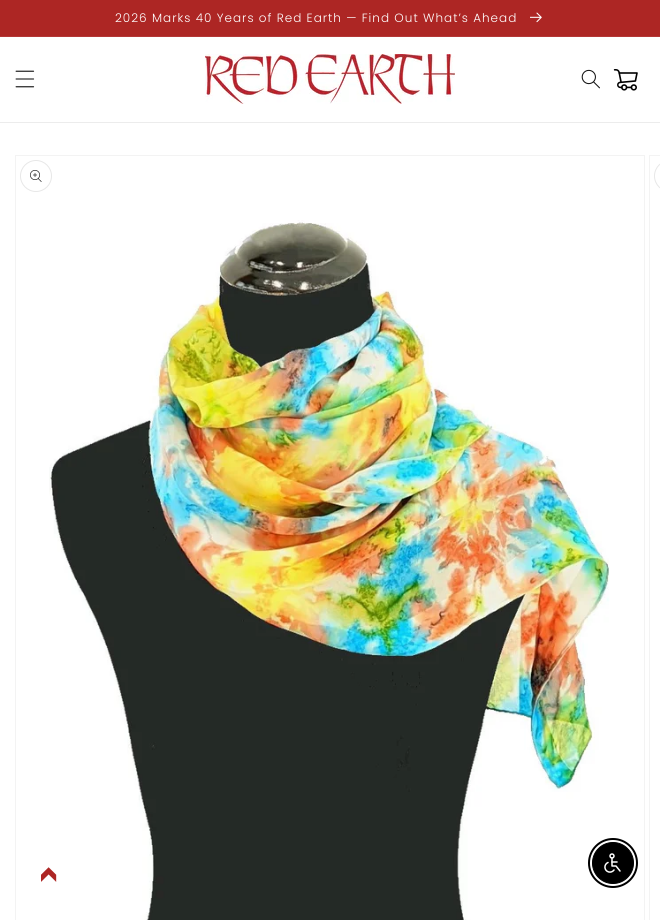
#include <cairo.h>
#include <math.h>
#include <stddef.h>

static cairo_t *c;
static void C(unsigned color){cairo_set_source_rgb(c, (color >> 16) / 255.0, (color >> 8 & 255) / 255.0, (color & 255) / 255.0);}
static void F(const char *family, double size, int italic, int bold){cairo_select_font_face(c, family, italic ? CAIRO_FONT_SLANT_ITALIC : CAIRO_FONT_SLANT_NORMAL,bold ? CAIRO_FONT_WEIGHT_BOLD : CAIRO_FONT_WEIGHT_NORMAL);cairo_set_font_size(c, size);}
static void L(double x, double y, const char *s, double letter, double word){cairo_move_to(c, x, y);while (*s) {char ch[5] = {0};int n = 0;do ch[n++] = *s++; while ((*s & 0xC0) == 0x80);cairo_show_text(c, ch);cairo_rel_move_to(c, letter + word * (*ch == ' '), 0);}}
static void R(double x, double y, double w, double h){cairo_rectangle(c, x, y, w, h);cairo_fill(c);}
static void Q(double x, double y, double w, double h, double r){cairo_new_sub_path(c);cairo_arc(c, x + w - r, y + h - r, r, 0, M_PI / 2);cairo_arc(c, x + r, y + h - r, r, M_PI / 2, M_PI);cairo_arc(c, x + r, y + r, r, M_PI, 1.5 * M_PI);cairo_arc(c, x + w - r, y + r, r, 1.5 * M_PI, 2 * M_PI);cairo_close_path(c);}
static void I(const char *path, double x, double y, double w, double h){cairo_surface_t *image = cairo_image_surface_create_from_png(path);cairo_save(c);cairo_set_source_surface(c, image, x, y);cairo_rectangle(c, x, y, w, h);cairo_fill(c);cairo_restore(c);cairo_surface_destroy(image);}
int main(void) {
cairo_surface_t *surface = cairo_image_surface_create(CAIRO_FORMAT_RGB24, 660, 920);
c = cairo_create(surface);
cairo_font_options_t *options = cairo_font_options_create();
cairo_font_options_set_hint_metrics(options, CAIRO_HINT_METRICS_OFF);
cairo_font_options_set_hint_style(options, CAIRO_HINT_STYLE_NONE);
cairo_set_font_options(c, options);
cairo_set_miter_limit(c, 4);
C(0xffffff);
cairo_paint(c);
C(0xad2624);
R(0,0,660,36);
C(0xb43736);
R(0,36,660,1);
F("Poppins Light",12,0,0);
C(0xffffff);
L(115,22,"2026 Marks 40 Years of Red Earth — Find Out What’s Ahead",1,0);
I("1.png",530,12,12,11);
C(0xececec);
R(0,122,660,1);
I("2.png",15,70,20,18);
I("3.png",205,54,250,50);
I("4.png",581,69,19,20);
I("5.png",613,69,25,22);
cairo_rectangle(c,15.5,155.5,629,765);
C(0xf3f3f3);
cairo_set_line_width(c,1);
cairo_stroke(c);
I("6.png",49,220,561,700);
cairo_arc(c,36,176,15.5,0,2 * M_PI);
C(0xe7e7e7);
cairo_stroke(c);
I("7.png",30,170,12,12);
cairo_rectangle(c,649.5,155.5,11,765);
C(0xf3f3f3);
cairo_stroke(c);
Q(654.5,160.5,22,31,15.5);
C(0xe7e7e7);
cairo_stroke(c);
I("8.png",41,867,16,15);
cairo_arc(c,613,863,24,0,2 * M_PI);
C(0x000000);
cairo_set_line_width(c,2);
cairo_stroke(c);
cairo_arc(c,613,863,20.5,0,2 * M_PI);
cairo_fill_preserve(c);
cairo_set_line_width(c,1);
cairo_stroke(c);
I("9.png",604,853,17,20);
cairo_surface_write_to_png(surface, "o.png");
cairo_font_options_destroy(options);
cairo_destroy(c);
cairo_surface_destroy(surface);
return 0;
}
